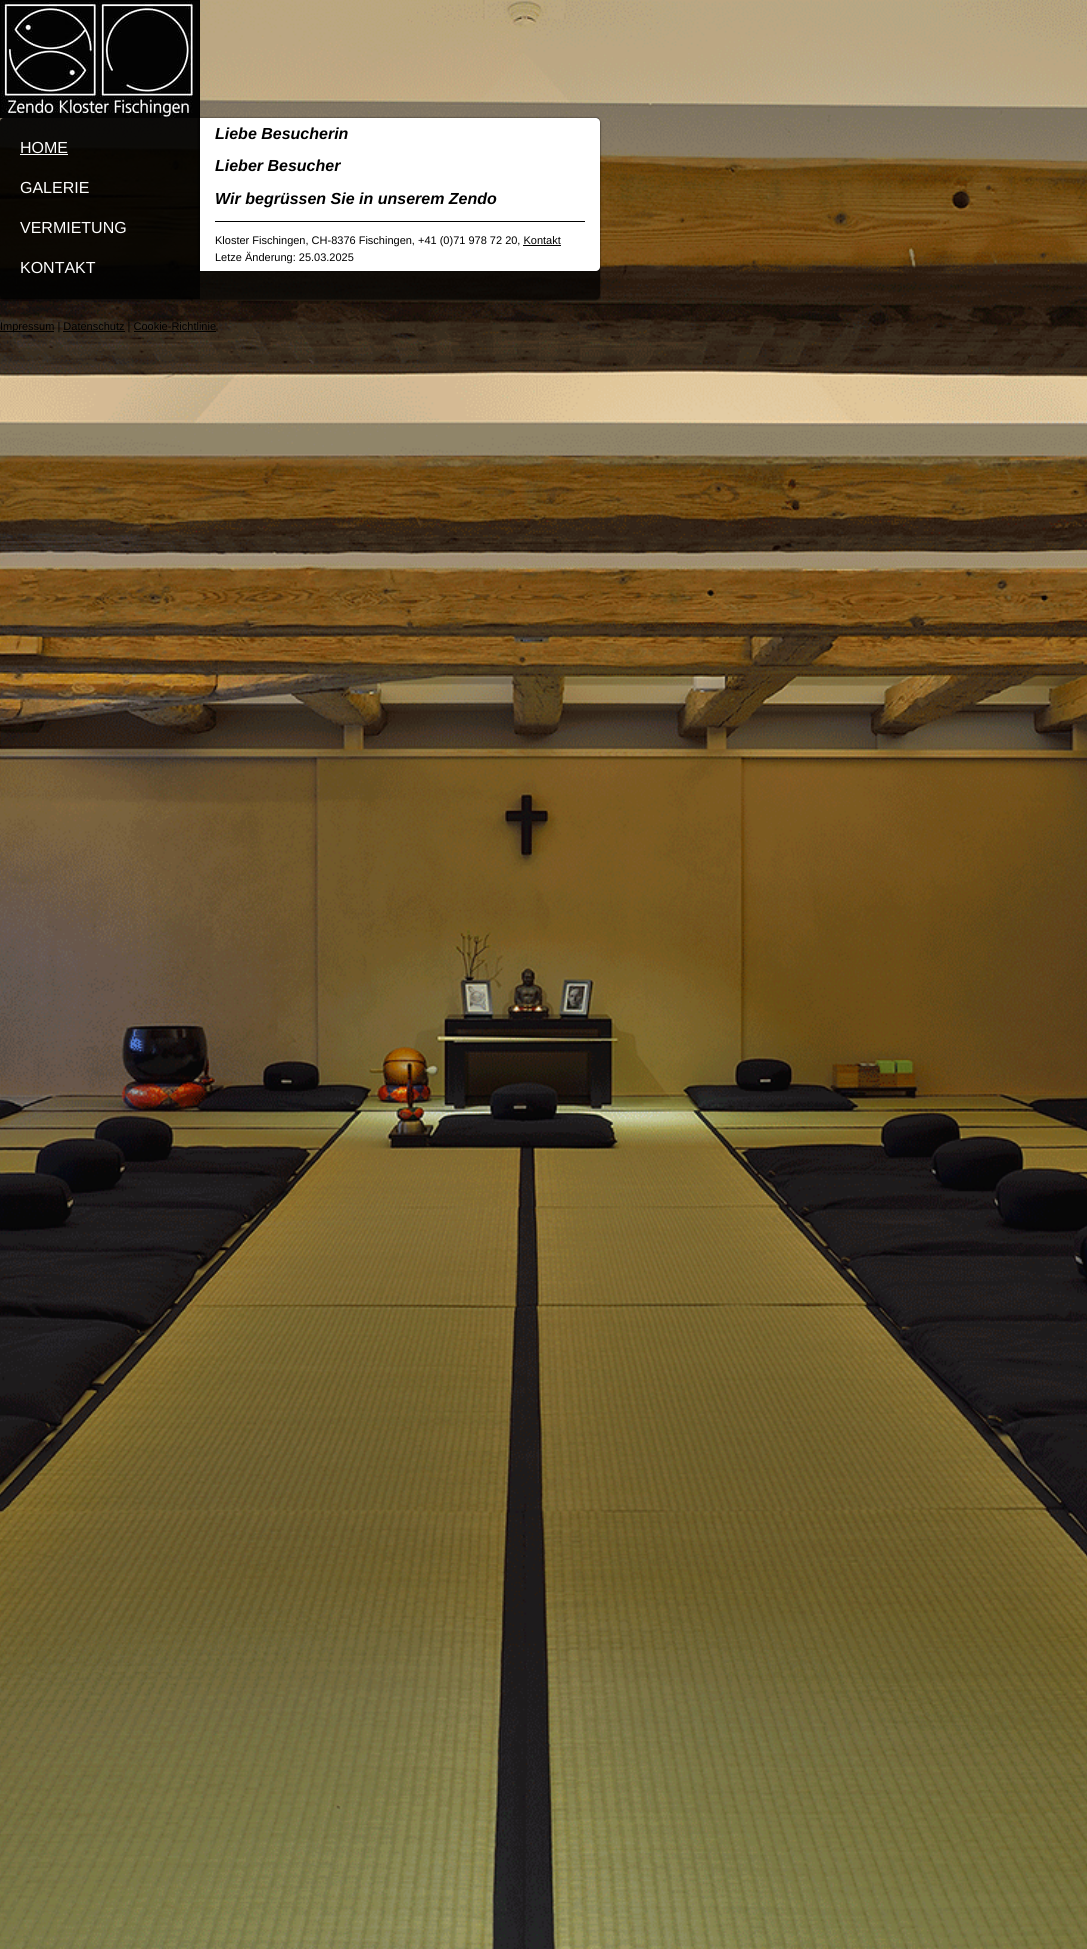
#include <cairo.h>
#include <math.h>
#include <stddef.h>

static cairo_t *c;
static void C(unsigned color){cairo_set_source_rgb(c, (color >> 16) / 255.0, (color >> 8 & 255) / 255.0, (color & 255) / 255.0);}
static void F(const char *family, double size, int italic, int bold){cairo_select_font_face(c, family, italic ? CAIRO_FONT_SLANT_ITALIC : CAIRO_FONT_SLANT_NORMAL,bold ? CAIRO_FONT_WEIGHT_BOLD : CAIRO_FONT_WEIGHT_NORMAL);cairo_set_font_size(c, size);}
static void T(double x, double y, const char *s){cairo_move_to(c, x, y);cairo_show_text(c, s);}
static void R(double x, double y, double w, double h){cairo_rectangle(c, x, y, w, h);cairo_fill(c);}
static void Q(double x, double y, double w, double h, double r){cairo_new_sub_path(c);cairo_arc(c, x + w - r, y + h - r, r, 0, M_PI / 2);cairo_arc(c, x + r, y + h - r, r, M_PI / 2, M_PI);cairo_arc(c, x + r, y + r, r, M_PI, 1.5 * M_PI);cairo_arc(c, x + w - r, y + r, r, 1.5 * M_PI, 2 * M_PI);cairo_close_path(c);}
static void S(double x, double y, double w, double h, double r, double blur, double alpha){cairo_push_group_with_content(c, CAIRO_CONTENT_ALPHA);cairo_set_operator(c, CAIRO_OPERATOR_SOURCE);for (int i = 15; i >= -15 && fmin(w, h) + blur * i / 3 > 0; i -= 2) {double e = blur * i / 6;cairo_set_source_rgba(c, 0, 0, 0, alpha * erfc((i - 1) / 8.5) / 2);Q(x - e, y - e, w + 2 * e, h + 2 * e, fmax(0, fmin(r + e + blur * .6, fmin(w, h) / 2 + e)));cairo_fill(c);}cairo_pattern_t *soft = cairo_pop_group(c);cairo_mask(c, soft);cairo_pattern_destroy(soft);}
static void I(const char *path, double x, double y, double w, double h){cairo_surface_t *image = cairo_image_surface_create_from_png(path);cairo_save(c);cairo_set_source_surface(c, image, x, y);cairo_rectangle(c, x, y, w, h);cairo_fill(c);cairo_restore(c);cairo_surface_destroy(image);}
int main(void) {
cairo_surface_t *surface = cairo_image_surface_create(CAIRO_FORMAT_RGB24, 1087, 1949);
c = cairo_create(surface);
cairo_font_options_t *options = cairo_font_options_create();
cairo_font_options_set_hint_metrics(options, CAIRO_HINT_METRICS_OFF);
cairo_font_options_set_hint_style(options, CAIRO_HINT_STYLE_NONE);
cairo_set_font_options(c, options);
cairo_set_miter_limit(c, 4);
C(0xffffff);
cairo_paint(c);
I("1.png",0,0,1087,1949);
cairo_save(c);
cairo_set_fill_rule(c,CAIRO_FILL_RULE_EVEN_ODD);
cairo_new_path(c);
cairo_move_to(c,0,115);
cairo_line_to(c,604,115);
cairo_line_to(c,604,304);
cairo_line_to(c,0,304);
cairo_close_path(c);
cairo_move_to(c,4,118);
cairo_line_to(c,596,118);
cairo_curve_to(c,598,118,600,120,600,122);
cairo_line_to(c,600,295);
cairo_curve_to(c,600,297,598,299,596,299);
cairo_line_to(c,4,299);
cairo_curve_to(c,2,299,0,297,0,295);
cairo_line_to(c,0,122);
cairo_curve_to(c,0,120,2,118,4,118);
cairo_close_path(c);
cairo_clip(c);
C(0x000000);
S(0,119,600,181,4,1,.8);
cairo_restore(c);
cairo_set_source_rgba(c,0,0,0,0.7);
Q(0,118,600,181,4);
cairo_fill(c);
cairo_new_path(c);
cairo_move_to(c,4,118);
cairo_line_to(c,200,118);
cairo_line_to(c,200,299);
cairo_line_to(c,0,299);
cairo_line_to(c,0,122);
cairo_curve_to(c,0,120,2,118,4,118);
cairo_close_path(c);
cairo_fill(c);
C(0x000000);
S(198,118,400,153,0,1,.5);
cairo_save(c);
cairo_rectangle(c,0,0,600,118);
cairo_clip(c);
cairo_rectangle(c,.5,.5,199,119);
C(0x000000);
cairo_set_line_width(c,1);
cairo_stroke(c);
cairo_restore(c);
I("2.png",1,1,198,117);
F("Liberation Sans",16,0,0);
C(0xffffff);
T(20,153,"HOME");
R(20,154,48,1);
T(20,193,"GALERIE");
T(20,233,"VERMIETUNG");
T(20,273,"KONTAKT");
cairo_new_path(c);
cairo_move_to(c,200,118);
cairo_line_to(c,596,118);
cairo_curve_to(c,598,118,600,120,600,122);
cairo_line_to(c,600,215);
cairo_line_to(c,200,215);
cairo_close_path(c);
cairo_fill(c);
F("Liberation Sans",16,1,1);
C(0x000000);
T(215,139,"Liebe Besucherin");
T(215,171,"Lieber Besucher");
T(215,204,"Wir begrüssen Sie in unserem Zendo");
C(0xffffff);
cairo_new_path(c);
cairo_move_to(c,200,215);
cairo_line_to(c,600,215);
cairo_line_to(c,600,267);
cairo_curve_to(c,600,269,598,271,596,271);
cairo_line_to(c,200,271);
cairo_close_path(c);
cairo_fill(c);
C(0x000000);
R(215,221,370,1);
F("Liberation Sans",11,0,0);
T(215,244,"Kloster Fischingen, CH-8376 Fischingen, +41 (0)71 978 72 20, Kontakt");
R(523,245,38,1);
T(215,261,"Letze Änderung: 25.03.2025");
R(0,331,54,1);
T(0,330,"Impressum | Datenschutz | Cookie-Richtlinie");
R(63,331,62,1);
R(134,331,82,1);
cairo_surface_write_to_png(surface, "o.png");
cairo_font_options_destroy(options);
cairo_destroy(c);
cairo_surface_destroy(surface);
return 0;
}
